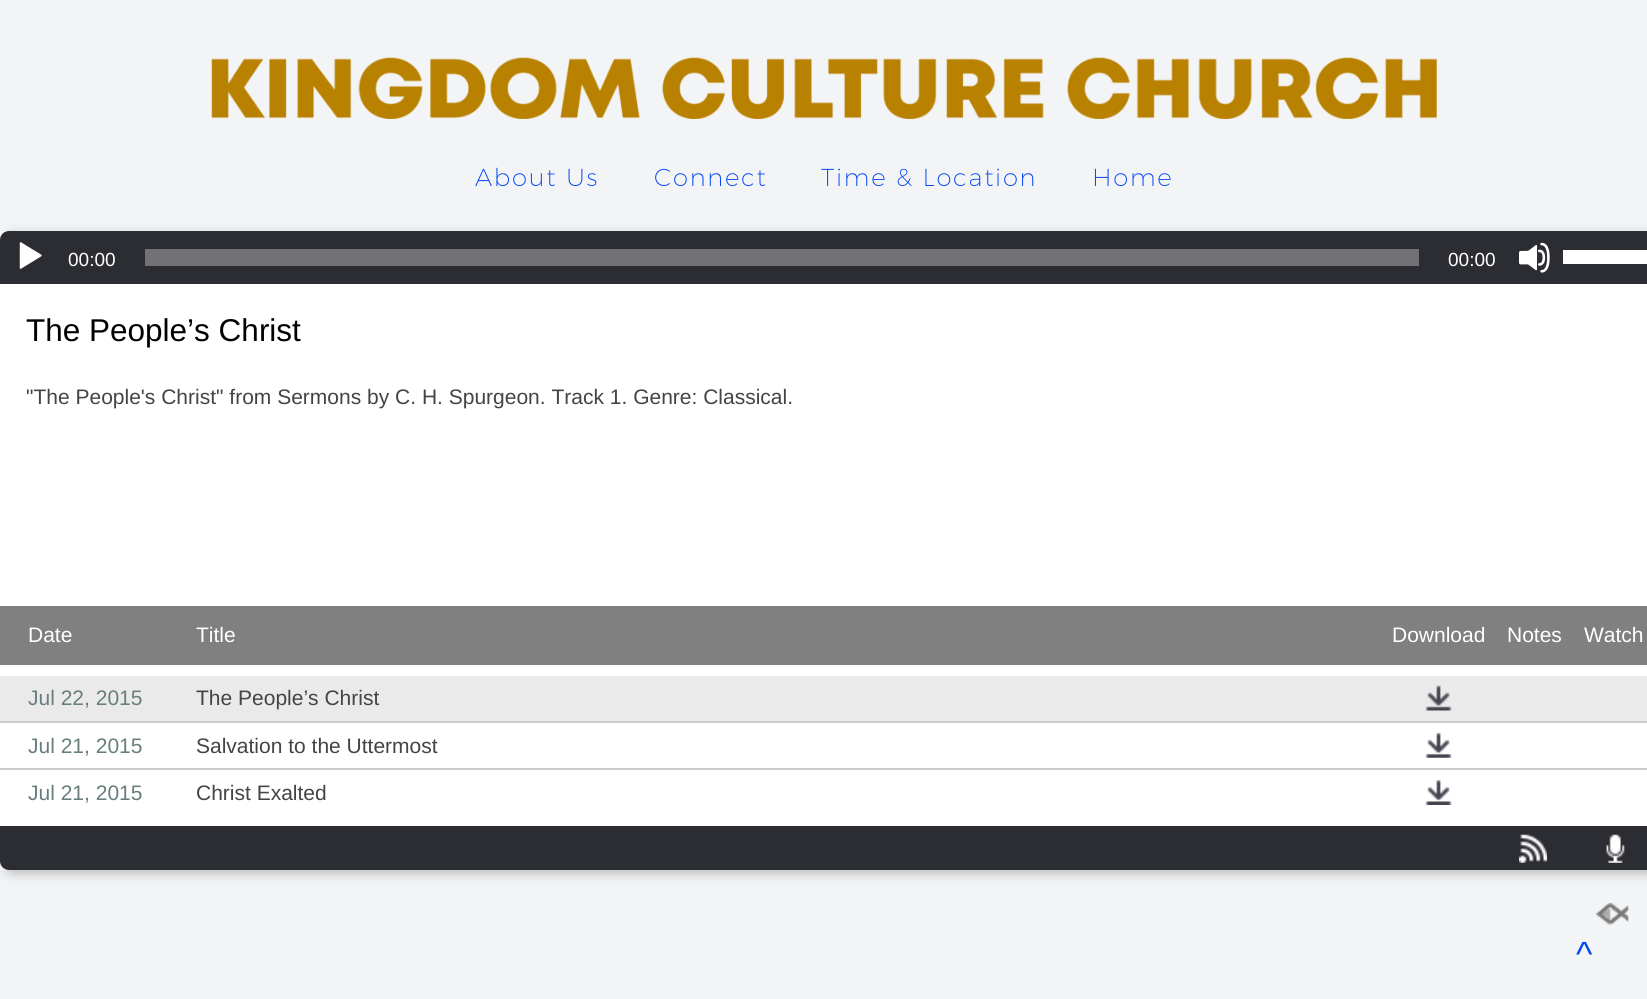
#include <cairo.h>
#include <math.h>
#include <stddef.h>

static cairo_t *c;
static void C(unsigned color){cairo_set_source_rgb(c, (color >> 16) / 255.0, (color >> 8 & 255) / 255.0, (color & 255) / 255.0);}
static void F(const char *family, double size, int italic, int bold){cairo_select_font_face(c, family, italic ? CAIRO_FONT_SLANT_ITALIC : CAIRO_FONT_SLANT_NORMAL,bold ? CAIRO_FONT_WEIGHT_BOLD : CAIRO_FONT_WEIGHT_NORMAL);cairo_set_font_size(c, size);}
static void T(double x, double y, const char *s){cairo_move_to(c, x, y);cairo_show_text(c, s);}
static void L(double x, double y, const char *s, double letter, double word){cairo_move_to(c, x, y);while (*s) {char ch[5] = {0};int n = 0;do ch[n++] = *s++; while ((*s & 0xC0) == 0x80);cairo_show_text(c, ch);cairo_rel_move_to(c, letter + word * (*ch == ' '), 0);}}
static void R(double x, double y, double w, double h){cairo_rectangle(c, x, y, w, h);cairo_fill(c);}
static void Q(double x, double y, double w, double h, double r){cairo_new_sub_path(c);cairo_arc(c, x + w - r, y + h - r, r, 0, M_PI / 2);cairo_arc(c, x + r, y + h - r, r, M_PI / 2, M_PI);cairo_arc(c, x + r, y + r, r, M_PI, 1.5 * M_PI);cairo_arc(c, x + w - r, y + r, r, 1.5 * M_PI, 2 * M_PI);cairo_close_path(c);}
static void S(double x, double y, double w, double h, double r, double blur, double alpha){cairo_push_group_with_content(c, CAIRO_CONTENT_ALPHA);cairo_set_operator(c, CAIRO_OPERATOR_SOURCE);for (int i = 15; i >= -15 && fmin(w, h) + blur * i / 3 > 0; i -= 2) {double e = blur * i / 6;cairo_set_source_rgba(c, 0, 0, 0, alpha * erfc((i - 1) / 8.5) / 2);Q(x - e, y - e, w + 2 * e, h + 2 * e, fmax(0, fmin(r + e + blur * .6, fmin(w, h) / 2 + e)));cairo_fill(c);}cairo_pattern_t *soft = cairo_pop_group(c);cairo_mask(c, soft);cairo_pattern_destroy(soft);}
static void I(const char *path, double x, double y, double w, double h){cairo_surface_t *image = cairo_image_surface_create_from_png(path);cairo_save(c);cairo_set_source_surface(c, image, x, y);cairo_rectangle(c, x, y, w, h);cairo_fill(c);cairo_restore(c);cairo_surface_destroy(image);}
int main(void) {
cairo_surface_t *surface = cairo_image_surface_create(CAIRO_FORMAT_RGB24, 1647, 999);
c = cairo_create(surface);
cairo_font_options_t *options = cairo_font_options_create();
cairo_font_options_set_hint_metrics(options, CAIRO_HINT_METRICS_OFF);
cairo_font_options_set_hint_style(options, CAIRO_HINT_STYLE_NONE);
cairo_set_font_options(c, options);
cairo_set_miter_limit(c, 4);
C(0xf3f4f5);
cairo_paint(c);
I("1.png",211,57,1226,62);
F("Montserrat ExtraLight",24.5,0,0);
C(0x0548f2);
L(475,186,"About Us",1.75,0);
L(654,186,"Connect",1.75,0);
L(821,186,"Time & Location",1.75,0);
L(1092,186,"Home",1.75,0);
C(0xffffff);
R(0,231,9,639);
C(0x000000);
S(4,235,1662,638,9,6,.25);
C(0xffffff);
Q(0,231,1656,639,9);
cairo_fill(c);
C(0x2c2d33);
cairo_new_path(c);
cairo_move_to(c,9,231);
cairo_line_to(c,1647,231);
cairo_curve_to(c,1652,231,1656,235,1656,240);
cairo_line_to(c,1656,284);
cairo_line_to(c,0,284);
cairo_line_to(c,0,240);
cairo_curve_to(c,0,235,4,231,9,231);
cairo_close_path(c);
cairo_fill(c);
I("2.png",19,242,23,27);
F("Liberation Sans",19,0,0);
C(0xffffff);
T(68,266,"00:00");
C(0x727276);
R(145,249,1274,17);
C(0xffffff);
T(1448,266,"00:00");
I("3.png",1519,242,31,31);
R(1563,250,84,14);
F("Liberation Sans",31.5,0,0);
C(0x000000);
T(26,341,"The People’s Christ");
F("Liberation Sans",21,0,0);
C(0x444444);
T(26,404,"\"The People's Christ\" from Sermons by C. H. Spurgeon. Track 1. Genre: Classical.");
C(0x808080);
R(0,606,1647,59);
C(0xffffff);
T(28,642,"Date");
T(196,642,"Title");
T(1392,642,"Download");
T(1507,642,"Notes");
T(1584,642,"Watch");
C(0xeaeaea);
R(0,676,1647,45);
C(0x687e7c);
T(28,705,"Jul 22, 2015");
C(0x444444);
T(196,705,"The People’s Christ");
I("4.png",1425,685,27,26);
C(0xcccccc);
R(0,721,1647,2);
C(0x687e7c);
T(28,753,"Jul 21, 2015");
C(0x444444);
T(196,753,"Salvation to the Uttermost");
I("5.png",1425,732,27,26);
C(0xcccccc);
R(0,768,1647,2);
C(0x687e7c);
T(28,800,"Jul 21, 2015");
C(0x444444);
T(196,800,"Christ Exalted");
I("6.png",1425,780,27,25);
C(0x2c2d33);
cairo_new_path(c);
cairo_move_to(c,0,826);
cairo_line_to(c,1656,826);
cairo_line_to(c,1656,861);
cairo_curve_to(c,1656,866,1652,870,1647,870);
cairo_line_to(c,9,870);
cairo_curve_to(c,4,870,0,866,0,861);
cairo_close_path(c);
cairo_fill(c);
I("7.png",1519,834,28,29);
I("8.png",1606,834,19,29);
I("9.png",1596,903,33,22);
F("Liberation Sans",35,0,0);
C(0x0548f2);
L(1576,966,"^",1.75,0);
cairo_surface_write_to_png(surface, "o.png");
cairo_font_options_destroy(options);
cairo_destroy(c);
cairo_surface_destroy(surface);
return 0;
}
